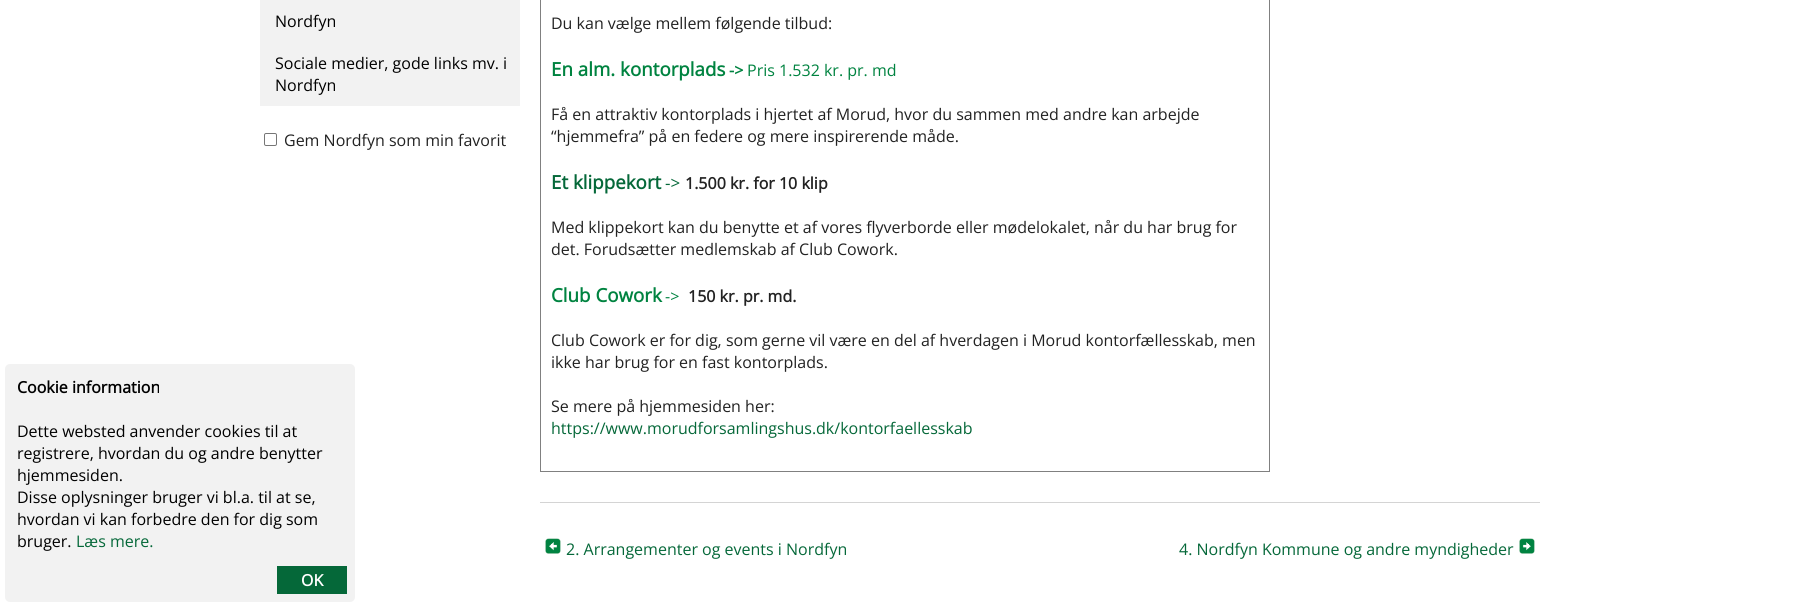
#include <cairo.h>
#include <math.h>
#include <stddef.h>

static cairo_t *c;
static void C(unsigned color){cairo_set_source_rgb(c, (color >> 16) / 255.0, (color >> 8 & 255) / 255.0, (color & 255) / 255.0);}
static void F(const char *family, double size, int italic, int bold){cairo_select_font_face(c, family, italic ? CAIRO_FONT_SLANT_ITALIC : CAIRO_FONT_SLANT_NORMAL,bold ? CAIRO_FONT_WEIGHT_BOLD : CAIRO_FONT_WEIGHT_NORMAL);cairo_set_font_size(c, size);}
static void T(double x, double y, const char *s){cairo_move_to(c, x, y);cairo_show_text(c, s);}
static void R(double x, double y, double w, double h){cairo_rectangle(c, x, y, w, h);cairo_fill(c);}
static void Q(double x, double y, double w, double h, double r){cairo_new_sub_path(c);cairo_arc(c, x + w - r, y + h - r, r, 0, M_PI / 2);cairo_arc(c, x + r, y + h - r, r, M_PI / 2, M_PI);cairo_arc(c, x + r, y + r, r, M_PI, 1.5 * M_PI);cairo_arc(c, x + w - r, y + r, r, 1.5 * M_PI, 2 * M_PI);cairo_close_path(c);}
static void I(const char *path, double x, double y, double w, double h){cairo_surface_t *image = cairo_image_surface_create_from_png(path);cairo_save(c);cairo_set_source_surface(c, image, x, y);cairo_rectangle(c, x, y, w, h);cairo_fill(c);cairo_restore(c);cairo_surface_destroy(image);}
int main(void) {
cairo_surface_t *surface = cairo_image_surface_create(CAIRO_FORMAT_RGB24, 1820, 607);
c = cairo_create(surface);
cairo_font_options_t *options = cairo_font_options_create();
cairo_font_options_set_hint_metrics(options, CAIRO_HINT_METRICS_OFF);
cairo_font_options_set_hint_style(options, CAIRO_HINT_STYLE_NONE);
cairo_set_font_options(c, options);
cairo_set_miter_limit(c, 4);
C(0xffffff);
cairo_paint(c);
C(0xf2f2f2);
Q(5,364,350,238,5);
cairo_fill(c);
F("Open Sans",16,0,1);
C(0x000000);
T(17,393,"Cookie information");
F("Open Sans",16,0,0);
T(17,437,"Dette websted anvender cookies til at");
T(17,459,"registrere, hvordan du og andre benytter");
T(17,481,"hjemmesiden.");
T(17,503,"Disse oplysninger bruger vi bl.a. til at se,");
T(17,525,"hvordan vi kan forbedre den for dig som");
T(17,547,"bruger.");
C(0x056839);
T(76,547,"Læs mere.");
R(277,566,70,28);
F("Open Sans",16,0,1);
C(0xffffff);
T(301,586,"OK");
C(0xf2f2f2);
R(260,0,260,106);
F("Open Sans",16,0,0);
C(0x000000);
T(275,27,"Nordfyn");
T(275,69,"Sociale medier, gode links mv. i");
T(275,91,"Nordfyn");
Q(264.5,133.5,12,12,1.5);
C(0x767676);
cairo_set_line_width(c,1);
cairo_stroke(c);
C(0x222222);
T(284,146,"Gem Nordfyn som min favorit");
C(0x808080);
R(1269,0,1,472);
R(540,471,730,1);
R(540,0,1,472);
C(0x222222);
T(551,29,"Du kan vælge mellem følgende tilbud:");
F("Open Sans",18.75,0,1);
C(0x008340);
T(551,76,"En alm. kontorplads");
F("Open Sans",16,0,1);
T(729,76,"->");
F("Open Sans",16,0,0);
T(747,76,"Pris 1.532 kr. pr. md");
C(0x222222);
T(551,120,"Få en attraktiv kontorplads i hjertet af Morud, hvor du sammen med andre kan arbejde");
T(551,142,"“hjemmefra” på en federe og mere inspirerende måde.");
F("Open Sans",18.75,0,1);
C(0x056839);
T(551,189,"Et klippekort");
F("Open Sans",17,0,0);
T(665,189,"->");
F("Open Sans",16,0,1);
C(0x222222);
T(685,189,"1.500 kr. for 10 klip");
F("Open Sans",16,0,0);
T(551,233,"Med klippekort kan du benytte et af vores flyverborde eller mødelokalet, når du har brug for");
T(551,255,"det. Forudsætter medlemskab af Club Cowork.");
F("Open Sans",18.75,0,1);
C(0x008340);
T(551,302,"Club Cowork");
F("Open Sans",16,0,0);
T(665,302,"->");
F("Open Sans",16,0,1);
C(0x222222);
T(688,302,"150 kr. pr. md.");
F("Open Sans",16,0,0);
T(551,346,"Club Cowork er for dig, som gerne vil være en del af hverdagen i Morud kontorfællesskab, men");
T(551,368,"ikke har brug for en fast kontorplads.");
T(551,412,"Se mere på hjemmesiden her:");
C(0x056839);
T(551,434,"https://www.morudforsamlingshus.dk/kontorfaellesskab");
C(0xd4d4d4);
R(540,502,1000,1);
I("1.png",545,538,16,16);
C(0x056839);
T(566,555,"2. Arrangementer og events i Nordfyn");
T(1179,555,"4. Nordfyn Kommune og andre myndigheder");
I("2.png",1519,538,16,16);
cairo_surface_write_to_png(surface, "o.png");
cairo_font_options_destroy(options);
cairo_destroy(c);
cairo_surface_destroy(surface);
return 0;
}
